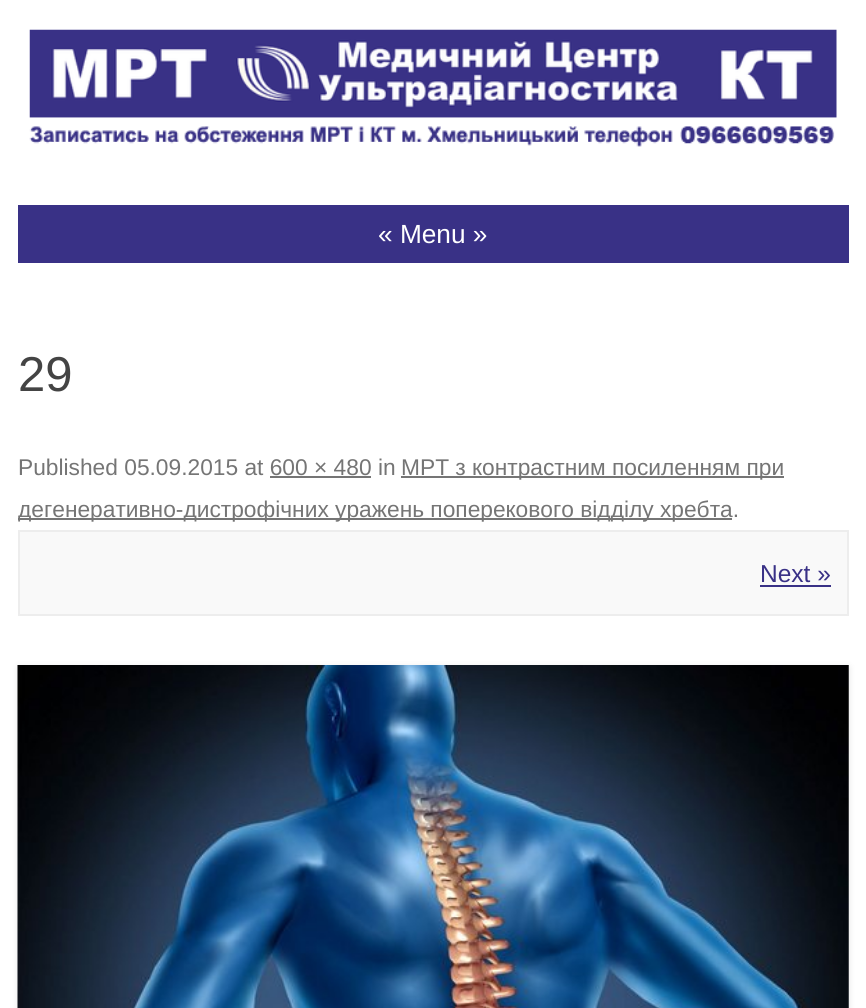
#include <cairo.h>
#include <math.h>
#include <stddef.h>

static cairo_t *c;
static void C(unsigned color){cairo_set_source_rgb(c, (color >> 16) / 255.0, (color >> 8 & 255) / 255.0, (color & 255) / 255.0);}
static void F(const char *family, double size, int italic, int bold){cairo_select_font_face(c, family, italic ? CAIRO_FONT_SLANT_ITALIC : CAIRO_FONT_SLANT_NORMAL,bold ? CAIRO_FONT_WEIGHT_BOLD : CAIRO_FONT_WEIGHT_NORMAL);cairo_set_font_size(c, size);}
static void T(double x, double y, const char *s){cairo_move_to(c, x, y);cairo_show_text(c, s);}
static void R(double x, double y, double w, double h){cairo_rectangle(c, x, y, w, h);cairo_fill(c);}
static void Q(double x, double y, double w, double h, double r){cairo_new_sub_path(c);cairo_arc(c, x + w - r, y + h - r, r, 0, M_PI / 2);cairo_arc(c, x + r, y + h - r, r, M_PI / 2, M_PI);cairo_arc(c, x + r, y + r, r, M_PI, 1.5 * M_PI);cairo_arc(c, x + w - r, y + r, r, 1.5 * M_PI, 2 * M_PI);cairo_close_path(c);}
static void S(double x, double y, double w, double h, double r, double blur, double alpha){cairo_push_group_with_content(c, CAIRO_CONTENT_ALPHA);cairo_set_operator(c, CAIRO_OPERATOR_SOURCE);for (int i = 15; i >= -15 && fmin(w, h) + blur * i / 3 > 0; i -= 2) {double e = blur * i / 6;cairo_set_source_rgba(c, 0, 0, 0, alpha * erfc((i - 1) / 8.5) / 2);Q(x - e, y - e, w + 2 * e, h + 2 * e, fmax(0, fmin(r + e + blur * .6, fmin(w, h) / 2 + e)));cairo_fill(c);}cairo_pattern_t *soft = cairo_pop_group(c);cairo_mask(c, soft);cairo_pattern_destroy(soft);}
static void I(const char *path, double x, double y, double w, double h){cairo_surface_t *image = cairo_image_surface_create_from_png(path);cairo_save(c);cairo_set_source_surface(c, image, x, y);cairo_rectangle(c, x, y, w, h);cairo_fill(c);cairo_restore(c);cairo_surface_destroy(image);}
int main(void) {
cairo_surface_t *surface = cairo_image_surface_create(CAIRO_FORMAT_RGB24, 866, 1008);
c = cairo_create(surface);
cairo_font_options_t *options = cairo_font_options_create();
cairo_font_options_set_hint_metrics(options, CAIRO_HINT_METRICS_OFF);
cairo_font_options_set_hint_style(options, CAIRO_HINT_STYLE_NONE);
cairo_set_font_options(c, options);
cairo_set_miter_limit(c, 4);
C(0xffffff);
cairo_paint(c);
I("1.png",29,29,808,118);
C(0x393186);
R(18,205,831,58);
F("Liberation Sans",26.25,0,0);
C(0xffffff);
T(378,243,"« Menu »");
F("Liberation Sans",49,0,0);
C(0x444444);
T(18,391,"29");
F("Liberation Sans",22.75,0,0);
C(0x757575);
T(18,475,"Published 05.09.2015 at 600 × 480 in");
R(401,476,383,2);
T(401,475,"МРТ з контрастним посиленням при");
R(270,476,101,2);
R(18,518,714,2);
T(18,517,"дегенеративно-дистрофічних уражень поперекового відділу хребта.");
C(0xf9f9f9);
cairo_rectangle(c,19,531,829,84);
cairo_fill_preserve(c);
C(0xededed);
cairo_stroke(c);
F("Liberation Sans",24.5,0,0);
C(0x393186);
T(760,582,"Next »");
R(760,585,71,2);
C(0x000000);
S(18,667,831,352,0,3.5,.1);
I("2.png",17,665,832,343);
cairo_surface_write_to_png(surface, "o.png");
cairo_font_options_destroy(options);
cairo_destroy(c);
cairo_surface_destroy(surface);
return 0;
}
